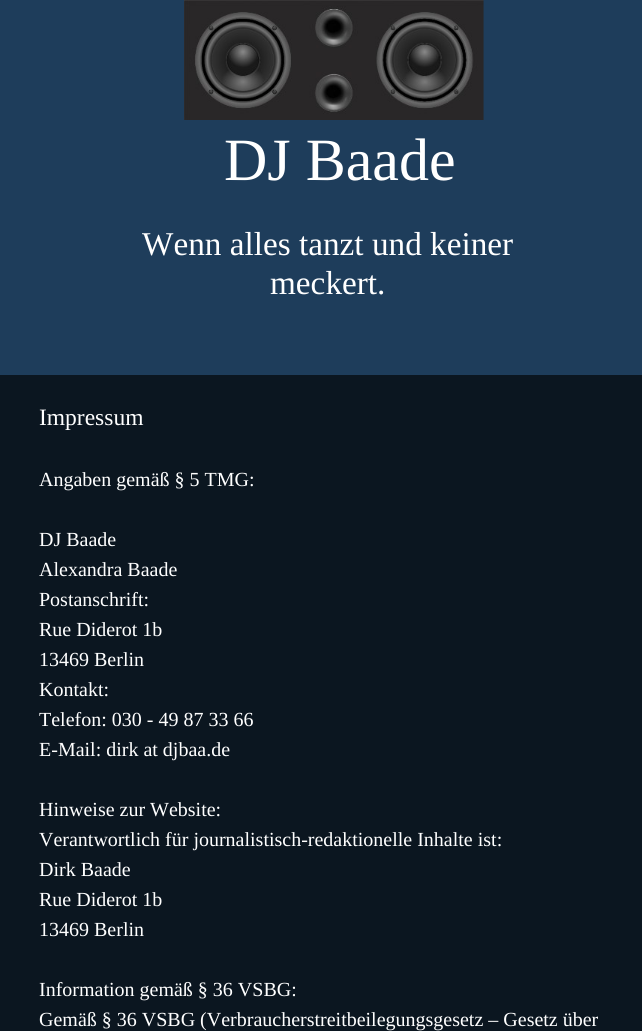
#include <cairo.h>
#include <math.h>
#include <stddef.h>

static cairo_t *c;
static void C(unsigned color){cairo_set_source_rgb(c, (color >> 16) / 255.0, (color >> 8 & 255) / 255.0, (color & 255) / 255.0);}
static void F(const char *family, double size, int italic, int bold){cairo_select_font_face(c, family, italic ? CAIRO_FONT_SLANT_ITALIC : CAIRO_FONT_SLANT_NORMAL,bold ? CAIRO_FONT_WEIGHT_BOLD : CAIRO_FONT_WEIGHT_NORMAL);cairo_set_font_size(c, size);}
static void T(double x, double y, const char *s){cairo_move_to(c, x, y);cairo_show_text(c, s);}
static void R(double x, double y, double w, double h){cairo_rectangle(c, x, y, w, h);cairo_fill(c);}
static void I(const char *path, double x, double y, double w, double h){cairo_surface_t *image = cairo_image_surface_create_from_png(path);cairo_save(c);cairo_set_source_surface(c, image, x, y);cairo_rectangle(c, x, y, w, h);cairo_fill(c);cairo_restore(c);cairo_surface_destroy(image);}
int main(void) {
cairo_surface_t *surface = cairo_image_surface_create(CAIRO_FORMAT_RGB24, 642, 1031);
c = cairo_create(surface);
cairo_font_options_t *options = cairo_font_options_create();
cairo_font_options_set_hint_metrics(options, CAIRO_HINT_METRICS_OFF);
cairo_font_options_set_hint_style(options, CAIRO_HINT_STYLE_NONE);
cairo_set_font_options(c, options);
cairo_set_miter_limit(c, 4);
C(0x0b1620);
cairo_paint(c);
C(0x1e3d5b);
R(0,0,642,375);
I("1.png",184,0,300,120);
F("Liberation Serif",60,0,0);
C(0xffffff);
T(224,180,"DJ Baade");
F("Liberation Serif",33.25,0,0);
T(142,255,"Wenn alles tanzt und keiner");
T(270,294,"meckert.");
F("Liberation Serif",23.5,0,0);
T(39,425,"Impressum");
F("Liberation Serif",20,0,0);
T(39,486,"Angaben gemäß § 5 TMG:");
T(39,546,"DJ Baade");
T(39,576,"Alexandra Baade");
T(39,606,"Postanschrift:");
T(39,636,"Rue Diderot 1b");
T(39,666,"13469 Berlin");
T(39,696,"Kontakt:");
T(39,726,"Telefon: 030 - 49 87 33 66");
T(39,756,"E-Mail: dirk at djbaa.de");
T(39,816,"Hinweise zur Website:");
T(39,846,"Verantwortlich für journalistisch-redaktionelle Inhalte ist:");
T(39,876,"Dirk Baade");
T(39,906,"Rue Diderot 1b");
T(39,936,"13469 Berlin");
T(39,996,"Information gemäß § 36 VSBG:");
T(39,1026,"Gemäß § 36 VSBG (Verbraucherstreitbeilegungsgesetz – Gesetz über");
cairo_surface_write_to_png(surface, "o.png");
cairo_font_options_destroy(options);
cairo_destroy(c);
cairo_surface_destroy(surface);
return 0;
}
